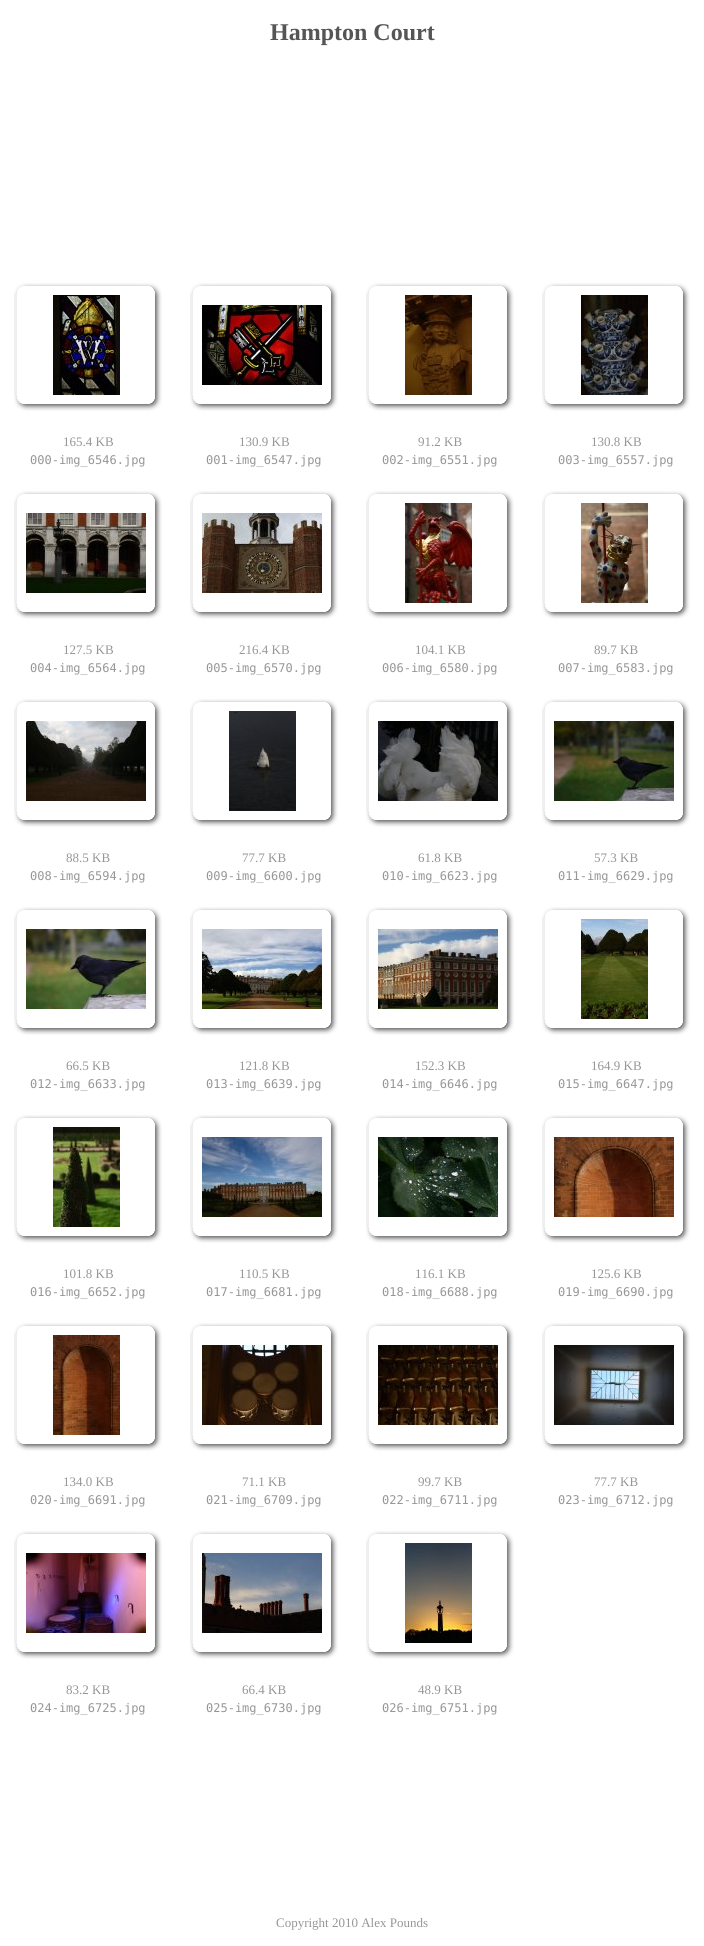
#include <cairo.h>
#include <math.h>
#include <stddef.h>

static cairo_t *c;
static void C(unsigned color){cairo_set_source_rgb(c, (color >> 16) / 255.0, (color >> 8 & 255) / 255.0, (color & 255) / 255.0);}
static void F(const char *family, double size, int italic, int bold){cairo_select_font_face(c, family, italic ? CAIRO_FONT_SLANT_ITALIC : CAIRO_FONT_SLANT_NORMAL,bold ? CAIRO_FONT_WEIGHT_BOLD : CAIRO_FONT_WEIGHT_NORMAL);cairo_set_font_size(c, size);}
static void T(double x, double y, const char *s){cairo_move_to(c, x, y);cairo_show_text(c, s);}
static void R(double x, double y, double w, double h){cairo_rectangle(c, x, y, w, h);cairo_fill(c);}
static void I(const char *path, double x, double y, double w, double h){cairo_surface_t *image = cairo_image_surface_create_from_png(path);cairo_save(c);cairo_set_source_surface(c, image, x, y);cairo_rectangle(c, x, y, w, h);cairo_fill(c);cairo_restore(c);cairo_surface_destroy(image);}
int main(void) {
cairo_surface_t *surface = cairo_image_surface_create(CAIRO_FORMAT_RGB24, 704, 1946);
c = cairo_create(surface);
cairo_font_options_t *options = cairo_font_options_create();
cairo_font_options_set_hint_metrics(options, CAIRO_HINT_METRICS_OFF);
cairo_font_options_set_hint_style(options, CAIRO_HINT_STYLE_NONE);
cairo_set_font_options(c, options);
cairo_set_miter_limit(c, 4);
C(0xffffff);
cairo_paint(c);
F("Liberation Serif",24,0,1);
C(0x555555);
T(270,40,"Hampton Court");
I("1.png",14,283,148,11);
C(0xefefef);
R(14,294,3,102);
I("2.png",53,295,67,100);
I("3.png",155,294,7,102);
I("4.png",14,396,148,15);
F("Liberation Serif",13,0,0);
C(0x969696);
T(63,446,"165.4 KB");
F("DejaVu Sans Mono",12,0,0);
T(30,464,"000-img_6546.jpg");
I("1.png",190,283,148,11);
C(0xefefef);
R(190,294,3,102);
I("5.png",202,305,120,80);
I("3.png",331,294,7,102);
I("4.png",190,396,148,15);
F("Liberation Serif",13,0,0);
C(0x969696);
T(239,446,"130.9 KB");
F("DejaVu Sans Mono",12,0,0);
T(206,464,"001-img_6547.jpg");
I("1.png",366,283,148,11);
C(0xefefef);
R(366,294,3,102);
I("6.png",405,295,67,100);
I("3.png",507,294,7,102);
I("4.png",366,396,148,15);
F("Liberation Serif",13,0,0);
C(0x969696);
T(418,446,"91.2 KB");
F("DejaVu Sans Mono",12,0,0);
T(382,464,"002-img_6551.jpg");
I("1.png",542,283,148,11);
C(0xefefef);
R(542,294,3,102);
I("7.png",581,295,67,100);
I("3.png",683,294,7,102);
I("4.png",542,396,148,15);
F("Liberation Serif",13,0,0);
C(0x969696);
T(591,446,"130.8 KB");
F("DejaVu Sans Mono",12,0,0);
T(558,464,"003-img_6557.jpg");
I("1.png",14,491,148,11);
C(0xefefef);
R(14,502,3,102);
I("8.png",26,513,120,80);
I("3.png",155,502,7,102);
I("4.png",14,604,148,15);
F("Liberation Serif",13,0,0);
C(0x969696);
T(63,654,"127.5 KB");
F("DejaVu Sans Mono",12,0,0);
T(30,672,"004-img_6564.jpg");
I("1.png",190,491,148,11);
C(0xefefef);
R(190,502,3,102);
I("9.png",202,513,120,80);
I("3.png",331,502,7,102);
I("4.png",190,604,148,15);
F("Liberation Serif",13,0,0);
C(0x969696);
T(239,654,"216.4 KB");
F("DejaVu Sans Mono",12,0,0);
T(206,672,"005-img_6570.jpg");
I("1.png",366,491,148,11);
C(0xefefef);
R(366,502,3,102);
I("10.png",405,503,67,100);
I("3.png",507,502,7,102);
I("4.png",366,604,148,15);
F("Liberation Serif",13,0,0);
C(0x969696);
T(415,654,"104.1 KB");
F("DejaVu Sans Mono",12,0,0);
T(382,672,"006-img_6580.jpg");
I("1.png",542,491,148,11);
C(0xefefef);
R(542,502,3,102);
I("11.png",581,503,67,100);
I("3.png",683,502,7,102);
I("4.png",542,604,148,15);
F("Liberation Serif",13,0,0);
C(0x969696);
T(594,654,"89.7 KB");
F("DejaVu Sans Mono",12,0,0);
T(558,672,"007-img_6583.jpg");
I("1.png",14,699,148,11);
C(0xefefef);
R(14,710,3,102);
I("12.png",26,721,120,80);
I("3.png",155,710,7,102);
I("4.png",14,812,148,15);
F("Liberation Serif",13,0,0);
C(0x969696);
T(66,862,"88.5 KB");
F("DejaVu Sans Mono",12,0,0);
T(30,880,"008-img_6594.jpg");
I("1.png",190,699,148,11);
C(0xefefef);
R(190,710,3,102);
I("13.png",229,711,67,100);
I("3.png",331,710,7,102);
I("4.png",190,812,148,15);
F("Liberation Serif",13,0,0);
C(0x969696);
T(242,862,"77.7 KB");
F("DejaVu Sans Mono",12,0,0);
T(206,880,"009-img_6600.jpg");
I("1.png",366,699,148,11);
C(0xefefef);
R(366,710,3,102);
I("14.png",378,721,120,80);
I("3.png",507,710,7,102);
I("4.png",366,812,148,15);
F("Liberation Serif",13,0,0);
C(0x969696);
T(418,862,"61.8 KB");
F("DejaVu Sans Mono",12,0,0);
T(382,880,"010-img_6623.jpg");
I("1.png",542,699,148,11);
C(0xefefef);
R(542,710,3,102);
I("15.png",554,721,120,80);
I("3.png",683,710,7,102);
I("4.png",542,812,148,15);
F("Liberation Serif",13,0,0);
C(0x969696);
T(594,862,"57.3 KB");
F("DejaVu Sans Mono",12,0,0);
T(558,880,"011-img_6629.jpg");
I("1.png",14,907,148,11);
C(0xefefef);
R(14,918,3,102);
I("16.png",26,929,120,80);
I("3.png",155,918,7,102);
I("4.png",14,1020,148,15);
F("Liberation Serif",13,0,0);
C(0x969696);
T(66,1070,"66.5 KB");
F("DejaVu Sans Mono",12,0,0);
T(30,1088,"012-img_6633.jpg");
I("1.png",190,907,148,11);
C(0xefefef);
R(190,918,3,102);
I("17.png",202,929,120,80);
I("3.png",331,918,7,102);
I("4.png",190,1020,148,15);
F("Liberation Serif",13,0,0);
C(0x969696);
T(239,1070,"121.8 KB");
F("DejaVu Sans Mono",12,0,0);
T(206,1088,"013-img_6639.jpg");
I("1.png",366,907,148,11);
C(0xefefef);
R(366,918,3,102);
I("18.png",378,929,120,80);
I("3.png",507,918,7,102);
I("4.png",366,1020,148,15);
F("Liberation Serif",13,0,0);
C(0x969696);
T(415,1070,"152.3 KB");
F("DejaVu Sans Mono",12,0,0);
T(382,1088,"014-img_6646.jpg");
I("1.png",542,907,148,11);
C(0xefefef);
R(542,918,3,102);
I("19.png",581,919,67,100);
I("3.png",683,918,7,102);
I("4.png",542,1020,148,15);
F("Liberation Serif",13,0,0);
C(0x969696);
T(591,1070,"164.9 KB");
F("DejaVu Sans Mono",12,0,0);
T(558,1088,"015-img_6647.jpg");
I("1.png",14,1115,148,11);
C(0xefefef);
R(14,1126,3,102);
I("20.png",53,1127,67,100);
I("3.png",155,1126,7,102);
I("4.png",14,1228,148,15);
F("Liberation Serif",13,0,0);
C(0x969696);
T(63,1278,"101.8 KB");
F("DejaVu Sans Mono",12,0,0);
T(30,1296,"016-img_6652.jpg");
I("1.png",190,1115,148,11);
C(0xefefef);
R(190,1126,3,102);
I("21.png",202,1137,120,80);
I("3.png",331,1126,7,102);
I("4.png",190,1228,148,15);
F("Liberation Serif",13,0,0);
C(0x969696);
T(239,1278,"110.5 KB");
F("DejaVu Sans Mono",12,0,0);
T(206,1296,"017-img_6681.jpg");
I("1.png",366,1115,148,11);
C(0xefefef);
R(366,1126,3,102);
I("22.png",378,1137,120,80);
I("3.png",507,1126,7,102);
I("4.png",366,1228,148,15);
F("Liberation Serif",13,0,0);
C(0x969696);
T(415,1278,"116.1 KB");
F("DejaVu Sans Mono",12,0,0);
T(382,1296,"018-img_6688.jpg");
I("1.png",542,1115,148,11);
C(0xefefef);
R(542,1126,3,102);
I("23.png",554,1137,120,80);
I("3.png",683,1126,7,102);
I("4.png",542,1228,148,15);
F("Liberation Serif",13,0,0);
C(0x969696);
T(591,1278,"125.6 KB");
F("DejaVu Sans Mono",12,0,0);
T(558,1296,"019-img_6690.jpg");
I("1.png",14,1323,148,11);
C(0xefefef);
R(14,1334,3,102);
I("24.png",53,1335,67,100);
I("3.png",155,1334,7,102);
I("4.png",14,1436,148,15);
F("Liberation Serif",13,0,0);
C(0x969696);
T(63,1486,"134.0 KB");
F("DejaVu Sans Mono",12,0,0);
T(30,1504,"020-img_6691.jpg");
I("1.png",190,1323,148,11);
C(0xefefef);
R(190,1334,3,102);
I("25.png",202,1345,120,80);
I("3.png",331,1334,7,102);
I("4.png",190,1436,148,15);
F("Liberation Serif",13,0,0);
C(0x969696);
T(242,1486,"71.1 KB");
F("DejaVu Sans Mono",12,0,0);
T(206,1504,"021-img_6709.jpg");
I("1.png",366,1323,148,11);
C(0xefefef);
R(366,1334,3,102);
I("26.png",378,1345,120,80);
I("3.png",507,1334,7,102);
I("4.png",366,1436,148,15);
F("Liberation Serif",13,0,0);
C(0x969696);
T(418,1486,"99.7 KB");
F("DejaVu Sans Mono",12,0,0);
T(382,1504,"022-img_6711.jpg");
I("1.png",542,1323,148,11);
C(0xefefef);
R(542,1334,3,102);
I("27.png",554,1345,120,80);
I("3.png",683,1334,7,102);
I("4.png",542,1436,148,15);
F("Liberation Serif",13,0,0);
C(0x969696);
T(594,1486,"77.7 KB");
F("DejaVu Sans Mono",12,0,0);
T(558,1504,"023-img_6712.jpg");
I("1.png",14,1531,148,11);
C(0xefefef);
R(14,1542,3,102);
I("28.png",26,1553,120,80);
I("3.png",155,1542,7,102);
I("4.png",14,1644,148,15);
F("Liberation Serif",13,0,0);
C(0x969696);
T(66,1694,"83.2 KB");
F("DejaVu Sans Mono",12,0,0);
T(30,1712,"024-img_6725.jpg");
I("1.png",190,1531,148,11);
C(0xefefef);
R(190,1542,3,102);
I("29.png",202,1553,120,80);
I("3.png",331,1542,7,102);
I("4.png",190,1644,148,15);
F("Liberation Serif",13,0,0);
C(0x969696);
T(242,1694,"66.4 KB");
F("DejaVu Sans Mono",12,0,0);
T(206,1712,"025-img_6730.jpg");
I("1.png",366,1531,148,11);
C(0xefefef);
R(366,1542,3,102);
I("30.png",405,1543,67,100);
I("3.png",507,1542,7,102);
I("4.png",366,1644,148,15);
F("Liberation Serif",13,0,0);
C(0x969696);
T(418,1694,"48.9 KB");
F("DejaVu Sans Mono",12,0,0);
T(382,1712,"026-img_6751.jpg");
F("Liberation Serif",13,0,0);
T(276,1927,"Copyright 2010 Alex Pounds");
cairo_surface_write_to_png(surface, "o.png");
cairo_font_options_destroy(options);
cairo_destroy(c);
cairo_surface_destroy(surface);
return 0;
}
